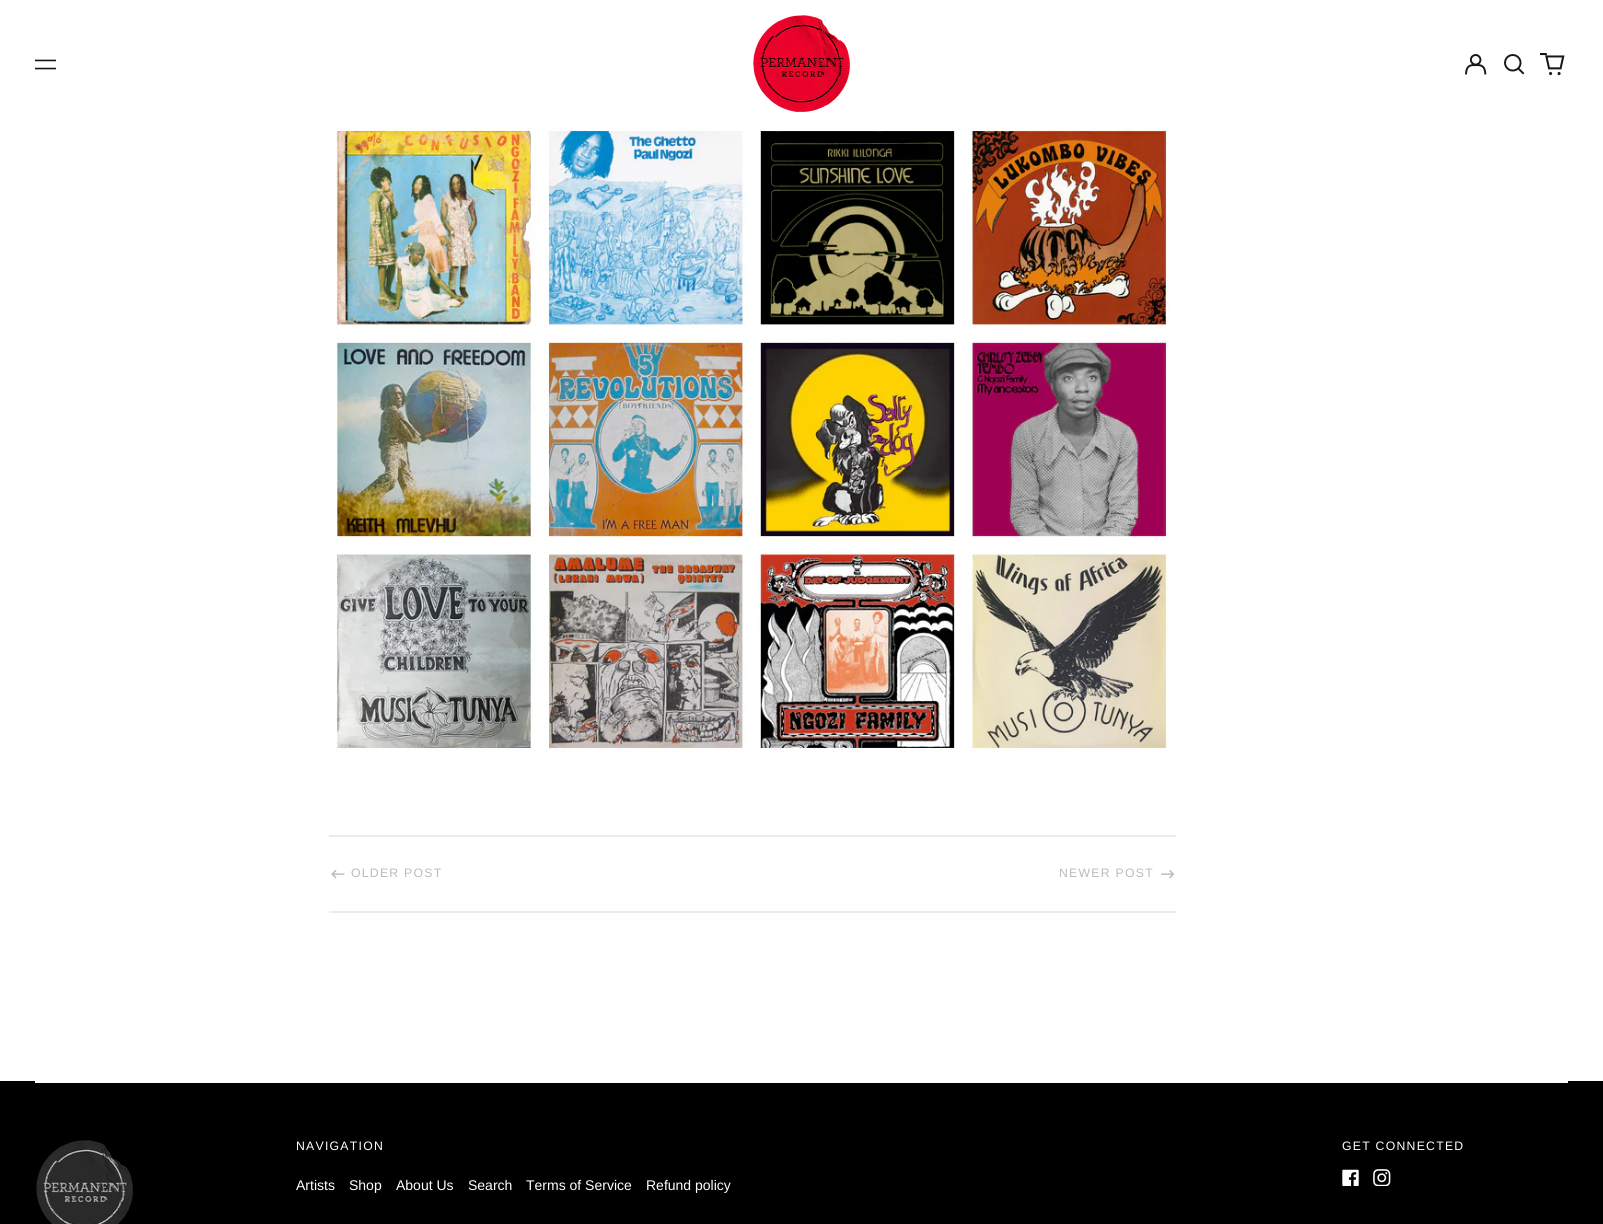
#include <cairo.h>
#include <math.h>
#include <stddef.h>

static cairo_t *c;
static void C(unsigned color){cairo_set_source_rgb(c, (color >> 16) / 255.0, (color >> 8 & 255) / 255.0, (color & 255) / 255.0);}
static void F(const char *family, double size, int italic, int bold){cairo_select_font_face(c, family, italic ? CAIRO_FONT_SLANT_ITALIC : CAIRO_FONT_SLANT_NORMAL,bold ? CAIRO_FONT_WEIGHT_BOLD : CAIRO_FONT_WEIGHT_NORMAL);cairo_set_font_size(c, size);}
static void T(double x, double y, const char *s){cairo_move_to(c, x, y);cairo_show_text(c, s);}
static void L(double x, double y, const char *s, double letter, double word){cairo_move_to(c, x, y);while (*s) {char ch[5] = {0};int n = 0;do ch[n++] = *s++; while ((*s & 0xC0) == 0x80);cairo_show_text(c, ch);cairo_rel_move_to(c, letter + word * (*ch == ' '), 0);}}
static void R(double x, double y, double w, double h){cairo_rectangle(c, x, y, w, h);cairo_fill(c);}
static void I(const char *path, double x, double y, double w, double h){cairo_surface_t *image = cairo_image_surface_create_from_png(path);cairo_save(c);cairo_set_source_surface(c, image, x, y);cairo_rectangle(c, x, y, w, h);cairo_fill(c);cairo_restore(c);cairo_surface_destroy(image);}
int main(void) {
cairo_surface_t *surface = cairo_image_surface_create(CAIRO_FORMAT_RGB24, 1603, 1224);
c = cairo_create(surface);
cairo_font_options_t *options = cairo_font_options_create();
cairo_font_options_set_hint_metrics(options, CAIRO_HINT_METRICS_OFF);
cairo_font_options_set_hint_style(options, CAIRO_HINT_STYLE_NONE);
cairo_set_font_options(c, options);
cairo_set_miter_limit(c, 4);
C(0xffffff);
cairo_paint(c);
I("1.png",35,59,21,11);
I("2.png",753,15,97,97);
I("3.png",1465,54,22,21);
I("4.png",1504,54,21,21);
I("5.png",1540,53,25,23);
I("6.png",336,128,833,625);
C(0xebebeb);
R(329,835,847,2);
R(329,911,847,2);
I("7.png",331,869,14,10);
F("Liberation Sans",12.25,0,0);
C(0xbbbbbb);
L(351,877,"OLDER POST",1.25,0);
L(1059,877,"NEWER POST",1.25,0);
I("8.png",1161,870,14,9);
C(0x000000);
R(0,1081,1603,143);
C(0xffffff);
R(35,1081,1533,2);
I("9.png",36,1140,97,84);
L(296,1150,"NAVIGATION",1.25,0);
F("Liberation Sans",14,0,0);
T(296,1190,"Artists");
T(349,1190,"Shop");
T(396,1190,"About Us");
T(468,1190,"Search");
T(526,1190,"Terms of Service");
T(646,1190,"Refund policy");
F("Liberation Sans",12.25,0,0);
L(1342,1150,"GET CONNECTED",1.25,0);
I("10.png",1342,1169,17,17);
I("11.png",1373,1169,18,17);
cairo_surface_write_to_png(surface, "o.png");
cairo_font_options_destroy(options);
cairo_destroy(c);
cairo_surface_destroy(surface);
return 0;
}
